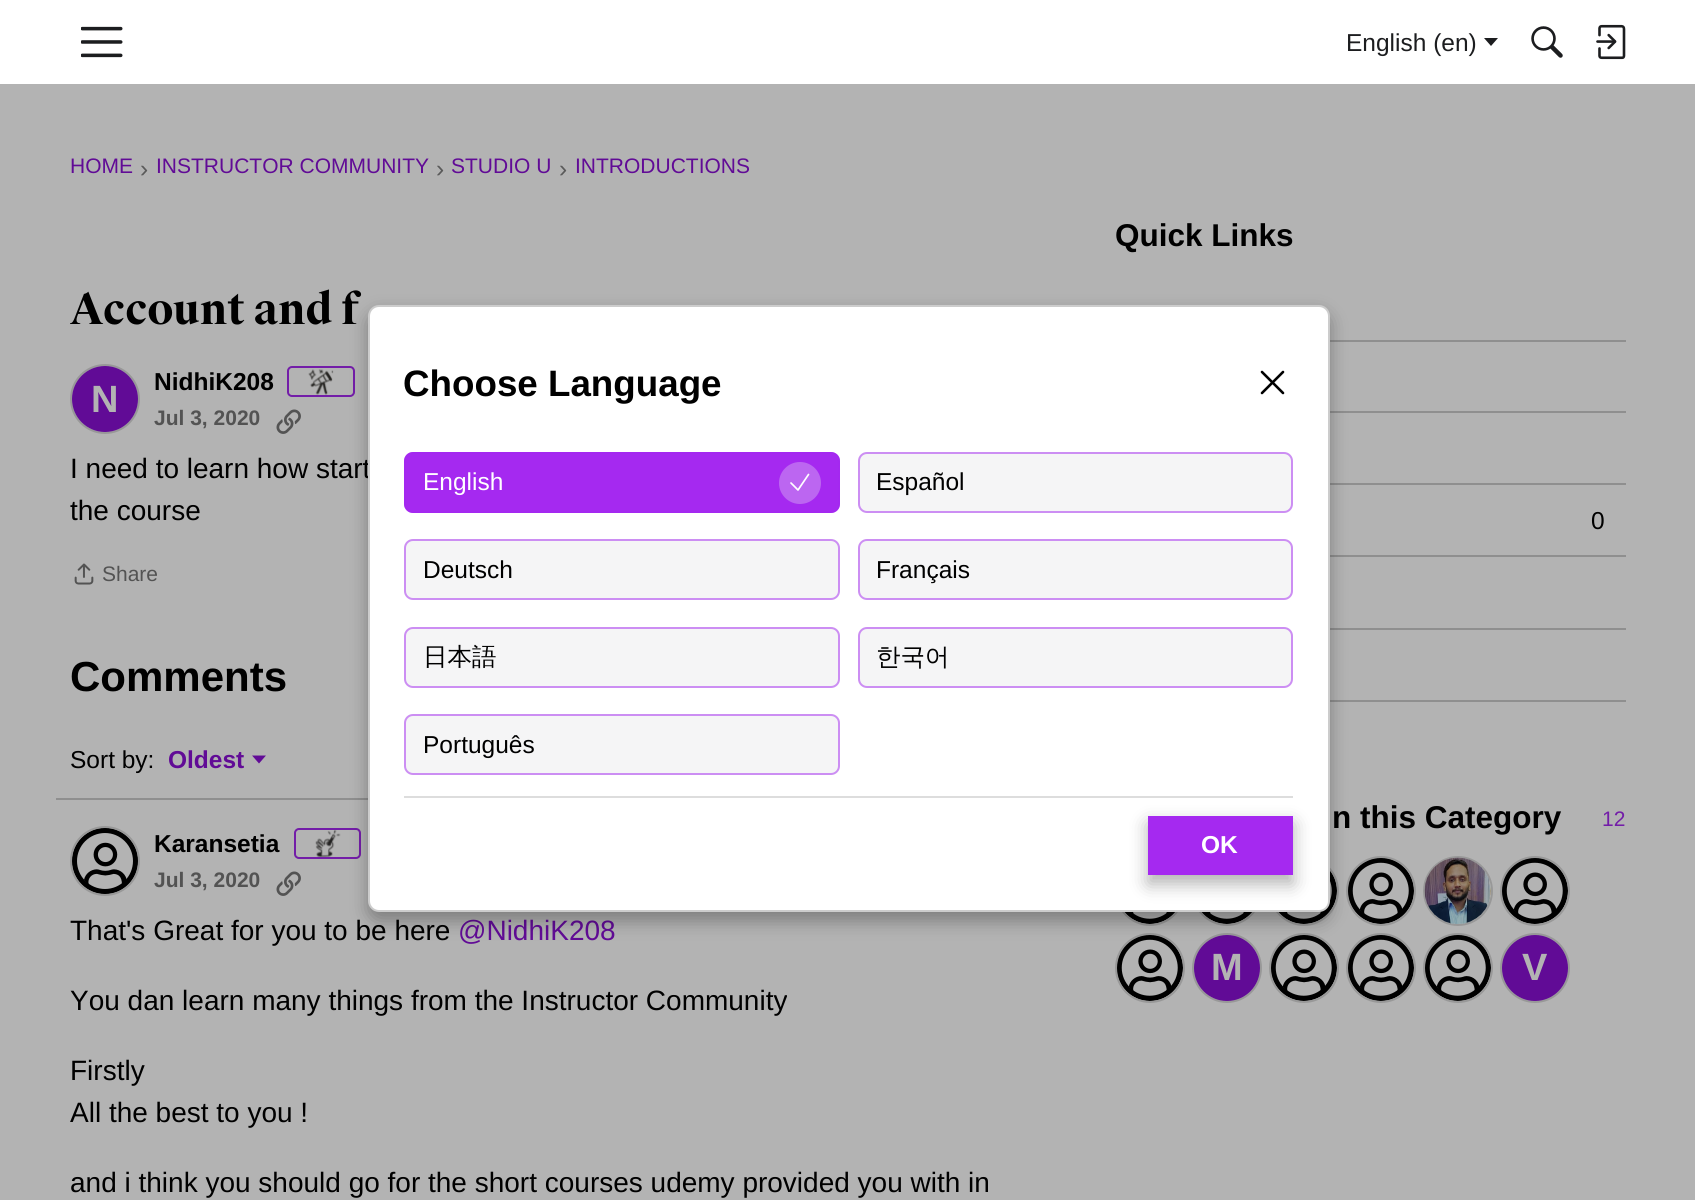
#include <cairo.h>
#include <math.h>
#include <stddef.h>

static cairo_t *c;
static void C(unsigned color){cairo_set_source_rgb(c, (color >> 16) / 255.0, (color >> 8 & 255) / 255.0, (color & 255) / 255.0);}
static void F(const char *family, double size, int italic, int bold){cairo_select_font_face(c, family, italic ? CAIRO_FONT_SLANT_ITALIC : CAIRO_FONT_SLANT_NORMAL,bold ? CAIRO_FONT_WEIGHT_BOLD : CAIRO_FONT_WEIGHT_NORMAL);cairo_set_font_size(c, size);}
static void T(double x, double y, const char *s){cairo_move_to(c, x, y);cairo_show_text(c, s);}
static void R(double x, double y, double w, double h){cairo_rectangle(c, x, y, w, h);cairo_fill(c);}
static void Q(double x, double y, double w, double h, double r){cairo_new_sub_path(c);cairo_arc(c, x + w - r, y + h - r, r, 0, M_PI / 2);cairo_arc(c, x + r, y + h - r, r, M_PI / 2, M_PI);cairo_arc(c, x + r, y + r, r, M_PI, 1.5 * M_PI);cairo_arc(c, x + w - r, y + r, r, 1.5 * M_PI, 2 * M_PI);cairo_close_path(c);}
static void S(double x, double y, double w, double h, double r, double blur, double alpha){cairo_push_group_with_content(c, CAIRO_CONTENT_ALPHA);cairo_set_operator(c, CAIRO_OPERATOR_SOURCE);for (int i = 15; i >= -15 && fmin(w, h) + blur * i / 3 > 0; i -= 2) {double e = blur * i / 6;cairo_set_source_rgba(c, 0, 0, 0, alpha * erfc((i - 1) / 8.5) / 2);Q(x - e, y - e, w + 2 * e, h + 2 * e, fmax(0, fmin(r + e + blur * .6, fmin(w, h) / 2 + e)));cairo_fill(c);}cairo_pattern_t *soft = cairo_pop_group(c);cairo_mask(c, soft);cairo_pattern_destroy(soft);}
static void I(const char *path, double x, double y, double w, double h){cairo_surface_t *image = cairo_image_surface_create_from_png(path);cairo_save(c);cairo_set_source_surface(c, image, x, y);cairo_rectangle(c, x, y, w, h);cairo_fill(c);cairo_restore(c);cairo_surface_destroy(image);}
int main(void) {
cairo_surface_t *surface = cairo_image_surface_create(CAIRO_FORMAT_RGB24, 1695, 1200);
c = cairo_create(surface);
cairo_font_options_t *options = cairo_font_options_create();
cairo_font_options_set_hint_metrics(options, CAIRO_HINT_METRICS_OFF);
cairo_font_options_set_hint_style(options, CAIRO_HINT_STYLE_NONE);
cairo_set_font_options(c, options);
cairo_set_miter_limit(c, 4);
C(0xb3b3b3);
cairo_paint(c);
C(0xffffff);
R(0,0,1695,84);
I("1.png",81,26,42,32);
F("Liberation Sans",24.5,0,0);
C(0x1c1d1f);
T(1346,51,"English (en)");
cairo_new_path(c);
cairo_move_to(c,1484,38);
cairo_line_to(c,1498,38);
cairo_line_to(c,1491,46);
cairo_close_path(c);
cairo_fill(c);
I("2.png",1531,26,32,32);
I("3.png",1596,24,30,36);
F("Liberation Sans",21,0,0);
C(0x610b96);
T(70,173,"HOME");
F("Liberation Sans",24.5,0,0);
C(0x5a5a5a);
T(140,177,"›");
F("Liberation Sans",21,0,0);
C(0x610b96);
T(156,173,"INSTRUCTOR COMMUNITY");
F("Liberation Sans",24.5,0,0);
C(0x5a5a5a);
T(436,177,"›");
F("Liberation Sans",21,0,0);
C(0x610b96);
T(451,173,"STUDIO U");
F("Liberation Sans",24.5,0,0);
C(0x5a5a5a);
T(559,177,"›");
F("Liberation Sans",21,0,0);
C(0x610b96);
T(575,173,"INTRODUCTIONS");
F("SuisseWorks",42,0,1);
C(0x000000);
T(70,324,"Account and f");
cairo_new_path(c);
cairo_arc(c,105,399,34,0,2 * M_PI);
C(0x989898);
cairo_stroke(c);
C(0x610b96);
cairo_arc(c,105,399,33,0,2 * M_PI);
cairo_fill(c);
F("Liberation Sans",38,0,1);
C(0xb3b3b3);
T(91,412,"N");
F("Liberation Sans",24.5,0,1);
C(0x000000);
T(154,390,"NidhiK208");
Q(288,367,66,29,4);
C(0x731da8);
cairo_stroke(c);
I("4.png",308,369,26,26);
F("Liberation Sans",21,0,1);
C(0x535353);
T(154,425,"Jul 3, 2020");
I("5.png",276,409,25,25);
F("Liberation Sans",28,0,0);
C(0x000000);
T(70,478,"I need to learn how start");
T(70,520,"the course");
I("6.png",74,563,20,22);
F("Liberation Sans",21,0,0);
C(0x535353);
T(102,581,"Share");
F("Liberation Sans",42,0,1);
C(0x000000);
T(70,691,"Comments");
F("Liberation Sans",24.5,0,0);
T(70,768,"Sort by:");
F("Liberation Sans",24.5,0,1);
C(0x610b96);
T(168,768,"Oldest");
cairo_new_path(c);
cairo_move_to(c,252,755.5);
cairo_line_to(c,266,755.5);
cairo_line_to(c,259,763.5);
cairo_close_path(c);
cairo_fill(c);
C(0x8f8f8f);
R(56,798,312,2);
cairo_arc(c,105,861,34,0,2 * M_PI);
C(0x989898);
cairo_stroke(c);
I("7.png",72,828,66,66);
C(0x000000);
T(154,852,"Karansetia");
Q(295,829,65,29,4);
C(0x731da8);
cairo_stroke(c);
I("8.png",315,830,26,28);
F("Liberation Sans",21,0,1);
C(0x535353);
T(154,887,"Jul 3, 2020");
I("5.png",276,871,25,25);
F("Liberation Sans",28,0,0);
C(0x000000);
T(70,940,"That's Great for you to be here");
C(0x610b96);
T(458,940,"@NidhiK208");
C(0x000000);
T(70,1010,"You dan learn many things from the Instructor Community");
T(70,1080,"Firstly");
T(70,1122,"All the best to you !");
T(70,1192,"and i think you should go for the short courses udemy provided you with in");
F("Liberation Sans",31.5,0,1);
T(1115,246,"Quick Links");
C(0x8f8f8f);
R(1330,340,296,2);
R(1330,411,296,2);
R(1330,483,296,2);
R(1330,555,296,2);
F("Liberation Sans",24.5,0,0);
C(0x000000);
T(1591,529,"0");
C(0x8f8f8f);
R(1330,628,296,2);
R(1330,700,296,2);
F("Liberation Sans",31.5,0,1);
C(0x000000);
T(1332,828,"n this Category");
F("Liberation Sans",21,0,0);
C(0x731da8);
T(1602,826,"12");
cairo_new_path(c);
cairo_arc(c,1150,891,34,0,2 * M_PI);
C(0x989898);
cairo_stroke(c);
I("9.png",1124,912,51,12);
cairo_arc(c,1227,891,34,0,2 * M_PI);
cairo_stroke(c);
I("9.png",1201,912,51,12);
cairo_arc(c,1304,891,34,0,2 * M_PI);
cairo_stroke(c);
I("10.png",1278,871,59,53);
cairo_arc(c,1381,891,34,0,2 * M_PI);
cairo_stroke(c);
I("11.png",1348,858,66,66);
cairo_arc(c,1458,891,34,0,2 * M_PI);
cairo_stroke(c);
I("12.png",1424,857,67,67);
cairo_arc(c,1535,891,34,0,2 * M_PI);
cairo_stroke(c);
I("11.png",1502,858,66,66);
cairo_arc(c,1150,968,34,0,2 * M_PI);
cairo_stroke(c);
I("11.png",1117,935,66,66);
cairo_arc(c,1227,968,34,0,2 * M_PI);
cairo_stroke(c);
cairo_save(c);
Q(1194,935,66,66,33);
cairo_clip(c);
C(0x9b9b9b);
S(1190,931,74,74,37,6,1);
cairo_restore(c);
C(0x610b96);
cairo_arc(c,1227,968,33,0,2 * M_PI);
cairo_fill(c);
F("Liberation Sans",38,0,1);
C(0xb3b3b3);
T(1211,980,"M");
cairo_new_path(c);
cairo_arc(c,1304,968,34,0,2 * M_PI);
C(0x989898);
cairo_stroke(c);
I("11.png",1271,935,66,66);
cairo_arc(c,1381,968,34,0,2 * M_PI);
cairo_stroke(c);
I("11.png",1348,935,66,66);
cairo_arc(c,1458,968,34,0,2 * M_PI);
cairo_stroke(c);
I("11.png",1425,935,66,66);
cairo_arc(c,1535,968,34,0,2 * M_PI);
cairo_stroke(c);
cairo_save(c);
Q(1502,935,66,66,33);
cairo_clip(c);
C(0x9b9b9b);
S(1498,931,74,74,37,6,1);
cairo_restore(c);
C(0x610b96);
cairo_arc(c,1535,968,33,0,2 * M_PI);
cairo_fill(c);
C(0xb3b3b3);
T(1522,980,"V");
C(0x000000);
S(368,313,962,608,11,9,.3);
C(0xffffff);
Q(369,306,960,605,10);
cairo_fill_preserve(c);
C(0xcccccc);
cairo_stroke(c);
F("Liberation Sans",36.75,0,1);
C(0x000000);
T(403,396,"Choose Language");
cairo_new_path(c);
cairo_move_to(c,1262,393);
cairo_line_to(c,1283,372);
cairo_move_to(c,1262,372);
cairo_line_to(c,1283,393);
cairo_set_line_width(c,2.6);
cairo_set_line_cap(c,CAIRO_LINE_CAP_ROUND);
cairo_set_line_join(c,CAIRO_LINE_JOIN_ROUND);
cairo_stroke(c);
C(0xa529f0);
Q(404,452,436,61,9);
cairo_fill(c);
Q(405,453,434,59,8);
cairo_set_source_rgba(c,0.647,0.161,0.941,0.5);
cairo_set_line_width(c,2);
cairo_set_line_cap(c,CAIRO_LINE_CAP_BUTT);
cairo_set_line_join(c,CAIRO_LINE_JOIN_MITER);
cairo_stroke(c);
F("Liberation Sans",24.5,0,0);
C(0xffffff);
T(423,490,"English");
C(0xbc66f1);
cairo_new_path(c);
cairo_arc(c,800,483,21,0,2 * M_PI);
cairo_fill(c);
cairo_new_path(c);
cairo_move_to(c,791,483);
cairo_line_to(c,798,490);
cairo_line_to(c,808.5,474.5);
C(0xffffff);
cairo_set_line_width(c,1.7);
cairo_set_line_cap(c,CAIRO_LINE_CAP_ROUND);
cairo_set_line_join(c,CAIRO_LINE_JOIN_ROUND);
cairo_stroke(c);
C(0xf5f5f6);
Q(858,452,435,61,9);
cairo_fill(c);
Q(859,453,433,59,8);
cairo_set_source_rgba(c,0.647,0.161,0.941,0.5);
cairo_set_line_width(c,2);
cairo_set_line_cap(c,CAIRO_LINE_CAP_BUTT);
cairo_set_line_join(c,CAIRO_LINE_JOIN_MITER);
cairo_stroke(c);
C(0x000000);
T(876,490,"Español");
C(0xf5f5f6);
Q(404,539,436,61,9);
cairo_fill(c);
Q(405,540,434,59,8);
cairo_set_source_rgba(c,0.647,0.161,0.941,0.5);
cairo_stroke(c);
C(0x000000);
T(423,578,"Deutsch");
C(0xf5f5f6);
Q(858,539,435,61,9);
cairo_fill(c);
Q(859,540,433,59,8);
cairo_set_source_rgba(c,0.647,0.161,0.941,0.5);
cairo_stroke(c);
C(0x000000);
T(876,578,"Français");
C(0xf5f5f6);
Q(404,627,436,61,9);
cairo_fill(c);
Q(405,628,434,59,8);
cairo_set_source_rgba(c,0.647,0.161,0.941,0.5);
cairo_stroke(c);
F("WenQuanYi Zen Hei Medium",24.5,0,0);
C(0x000000);
T(423,665,"日本語");
C(0xf5f5f6);
Q(858,627,435,61,9);
cairo_fill(c);
Q(859,628,433,59,8);
cairo_set_source_rgba(c,0.647,0.161,0.941,0.5);
cairo_stroke(c);
C(0x000000);
T(876,665,"한국어");
C(0xf5f5f6);
Q(404,714,436,61,9);
cairo_fill(c);
Q(405,715,434,59,8);
cairo_set_source_rgba(c,0.647,0.161,0.941,0.5);
cairo_stroke(c);
F("Liberation Sans",24.5,0,0);
C(0x000000);
T(423,753,"Português");
C(0xdddddd);
R(404,796,889,2);
C(0x000000);
S(1148,824,145,60,0,9,.3);
C(0xa529f0);
R(1148,816,145,59);
F("Liberation Sans",24.5,0,1);
C(0xffffff);
T(1201,853,"OK");
cairo_surface_write_to_png(surface, "o.png");
cairo_font_options_destroy(options);
cairo_destroy(c);
cairo_surface_destroy(surface);
return 0;
}
